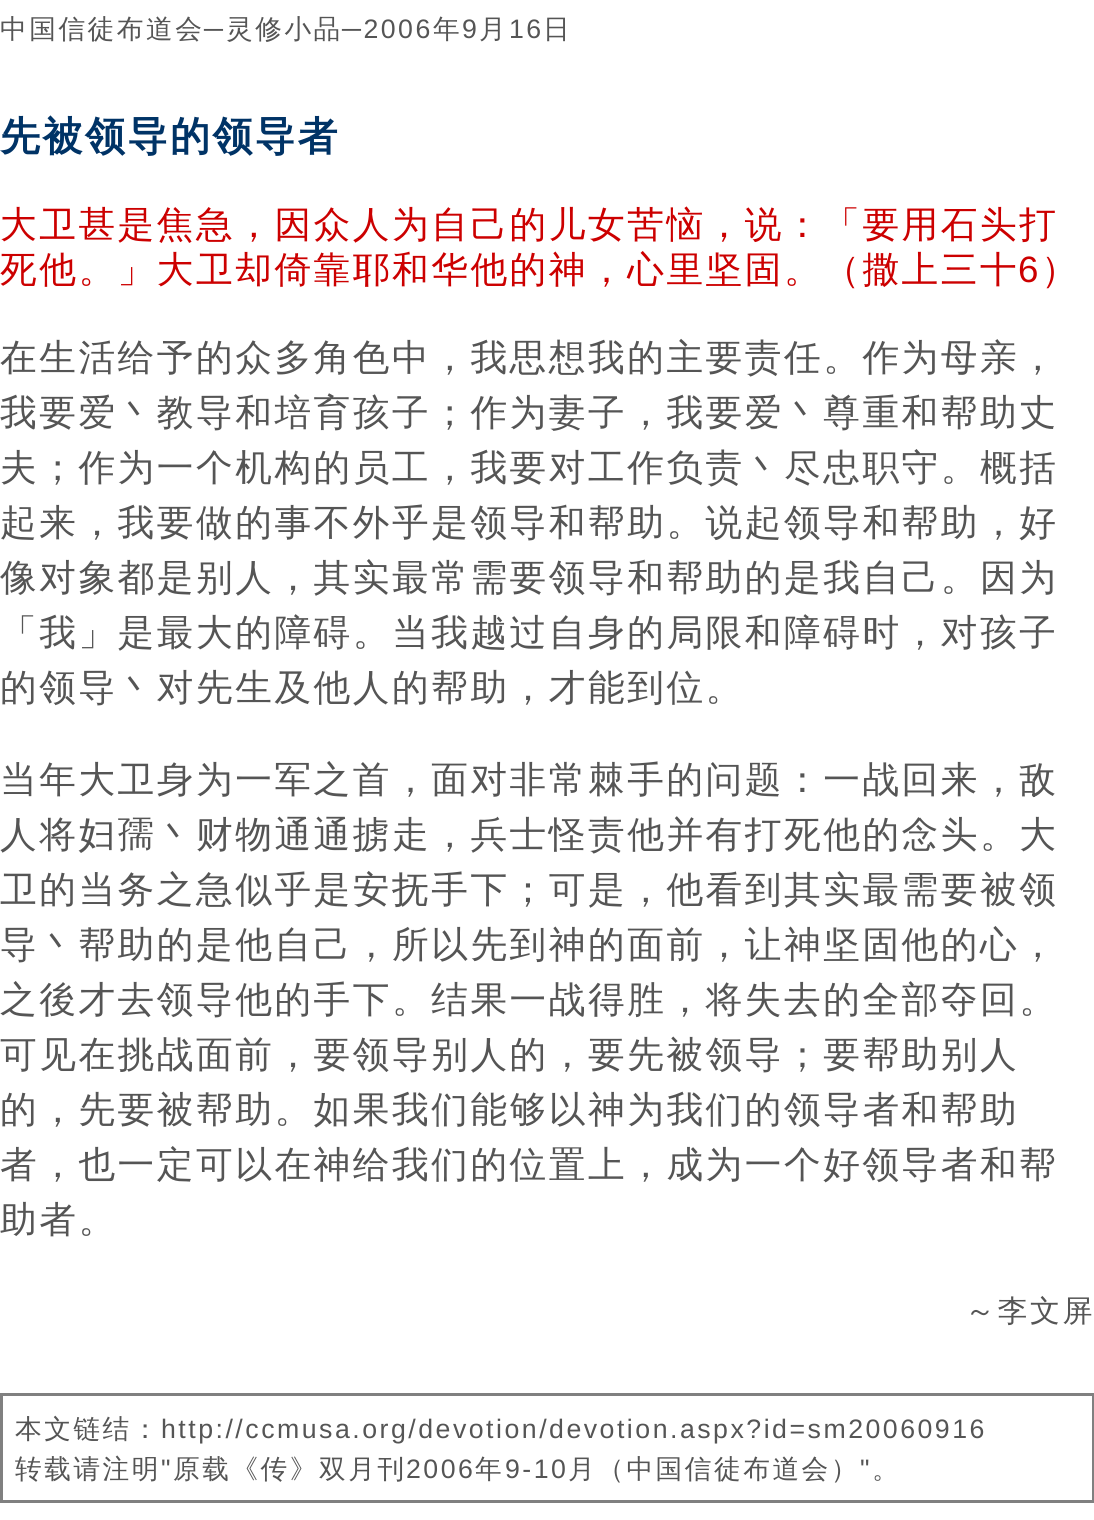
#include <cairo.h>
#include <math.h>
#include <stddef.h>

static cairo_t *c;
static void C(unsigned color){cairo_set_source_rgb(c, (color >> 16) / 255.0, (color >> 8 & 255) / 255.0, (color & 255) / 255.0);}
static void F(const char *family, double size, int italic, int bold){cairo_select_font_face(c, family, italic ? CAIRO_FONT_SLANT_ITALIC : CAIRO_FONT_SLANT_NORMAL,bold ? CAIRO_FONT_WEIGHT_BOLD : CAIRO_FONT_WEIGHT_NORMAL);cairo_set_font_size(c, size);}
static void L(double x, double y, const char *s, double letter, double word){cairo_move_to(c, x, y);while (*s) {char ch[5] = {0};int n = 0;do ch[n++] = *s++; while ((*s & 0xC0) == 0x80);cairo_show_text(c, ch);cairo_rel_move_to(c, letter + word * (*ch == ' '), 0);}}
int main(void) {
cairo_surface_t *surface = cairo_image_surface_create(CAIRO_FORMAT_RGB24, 1094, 1520);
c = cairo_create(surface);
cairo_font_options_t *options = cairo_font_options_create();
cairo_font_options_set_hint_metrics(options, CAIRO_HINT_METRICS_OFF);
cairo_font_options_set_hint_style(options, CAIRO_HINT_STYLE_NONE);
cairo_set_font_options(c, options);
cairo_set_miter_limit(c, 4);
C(0xffffff);
cairo_paint(c);
F("WenQuanYi Zen Hei Medium",26.7,0,0);
C(0x555555);
L(0,38,"中国信徒布道会",2.5,0);
F("Liberation Sans",26.7,0,0);
L(204,38,"─",2.5,0);
F("WenQuanYi Zen Hei Medium",26.7,0,0);
L(226,38,"灵修小品",2.5,0);
F("Liberation Sans",26.7,0,0);
L(342,38,"─2006",2.5,0);
F("WenQuanYi Zen Hei Medium",26.7,0,0);
L(433,38,"年",2.5,0);
F("Liberation Sans",26.7,0,0);
L(462,38,"9",2.5,0);
F("WenQuanYi Zen Hei Medium",26.7,0,0);
L(479,38,"月",2.5,0);
F("Liberation Sans",26.7,0,0);
L(509,38,"16",2.5,0);
F("WenQuanYi Zen Hei Medium",26.7,0,0);
L(543,38,"日",2.5,0);
F("WenQuanYi Zen Hei",40,0,1);
C(0x003366);
L(0,150,"先被领导的领导者",2.5,0);
F("WenQuanYi Zen Hei Medium",36.7,0,0);
C(0xcc0000);
L(0,237,"大卫甚是焦急，因众人为自己的儿女苦恼，说：「要用石头打",2.5,0);
L(0,282,"死他。」大卫却倚靠耶和华他的神，心里坚固。（撒上三十",2.5,0);
F("Liberation Sans",36.7,0,0);
L(1018,282,"6",2.5,0);
F("WenQuanYi Zen Hei Medium",36.7,0,0);
L(1041,282,"）",2.5,0);
C(0x555555);
L(0,370,"在生活给予的众多角色中，我思想我的主要责任。作为母亲，",2.5,0);
L(0,425,"我要爱丶教导和培育孩子；作为妻子，我要爱丶尊重和帮助丈",2.5,0);
L(0,480,"夫；作为一个机构的员工，我要对工作负责丶尽忠职守。概括",2.5,0);
L(0,535,"起来，我要做的事不外乎是领导和帮助。说起领导和帮助，好",2.5,0);
L(0,590,"像对象都是别人，其实最常需要领导和帮助的是我自己。因为",2.5,0);
L(0,645,"「我」是最大的障碍。当我越过自身的局限和障碍时，对孩子",2.5,0);
L(0,700,"的领导丶对先生及他人的帮助，才能到位。",2.5,0);
L(0,792,"当年大卫身为一军之首，面对非常棘手的问题：一战回来，敌",2.5,0);
L(0,847,"人将妇孺丶财物通通掳走，兵士怪责他并有打死他的念头。大",2.5,0);
L(0,902,"卫的当务之急似乎是安抚手下；可是，他看到其实最需要被领",2.5,0);
L(0,957,"导丶帮助的是他自己，所以先到神的面前，让神坚固他的心，",2.5,0);
L(0,1012,"之後才去领导他的手下。结果一战得胜，将失去的全部夺回。",2.5,0);
L(0,1067,"可见在挑战面前，要领导别人的，要先被领导；要帮助别人",2.5,0);
L(0,1122,"的，先要被帮助。如果我们能够以神为我们的领导者和帮助",2.5,0);
L(0,1177,"者，也一定可以在神给我们的位置上，成为一个好领导者和帮",2.5,0);
L(0,1232,"助者。",2.5,0);
F("WenQuanYi Zen Hei Medium",30,0,0);
L(965,1321,"～李文屏",2.5,0);
cairo_rectangle(c,1.5,1394.5,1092,107);
C(0x808080);
cairo_set_line_width(c,3);
cairo_stroke(c);
F("WenQuanYi Zen Hei Medium",26.7,0,0);
C(0x555555);
L(15,1438,"本文链结：",2.5,0);
F("Liberation Sans",26.7,0,0);
L(161,1438,"http://ccmusa.org/devotion/devotion.aspx?id=sm20060916",2.5,0);
F("WenQuanYi Zen Hei Medium",26.7,0,0);
L(15,1478,"转载请注明",2.5,0);
F("Liberation Sans",26.7,0,0);
L(161,1478,"\"",2.5,0);
F("WenQuanYi Zen Hei Medium",26.7,0,0);
L(173,1478,"原载《传》双月刊",2.5,0);
F("Liberation Sans",26.7,0,0);
L(406,1478,"2006",2.5,0);
F("WenQuanYi Zen Hei Medium",26.7,0,0);
L(475,1478,"年",2.5,0);
F("Liberation Sans",26.7,0,0);
L(505,1478,"9-10",2.5,0);
F("WenQuanYi Zen Hei Medium",26.7,0,0);
L(568,1478,"月（中国信徒布道会）",2.5,0);
F("Liberation Sans",26.7,0,0);
L(860,1478,"\"",2.5,0);
F("WenQuanYi Zen Hei Medium",26.7,0,0);
L(872,1478,"。",2.5,0);
cairo_surface_write_to_png(surface, "o.png");
cairo_font_options_destroy(options);
cairo_destroy(c);
cairo_surface_destroy(surface);
return 0;
}
